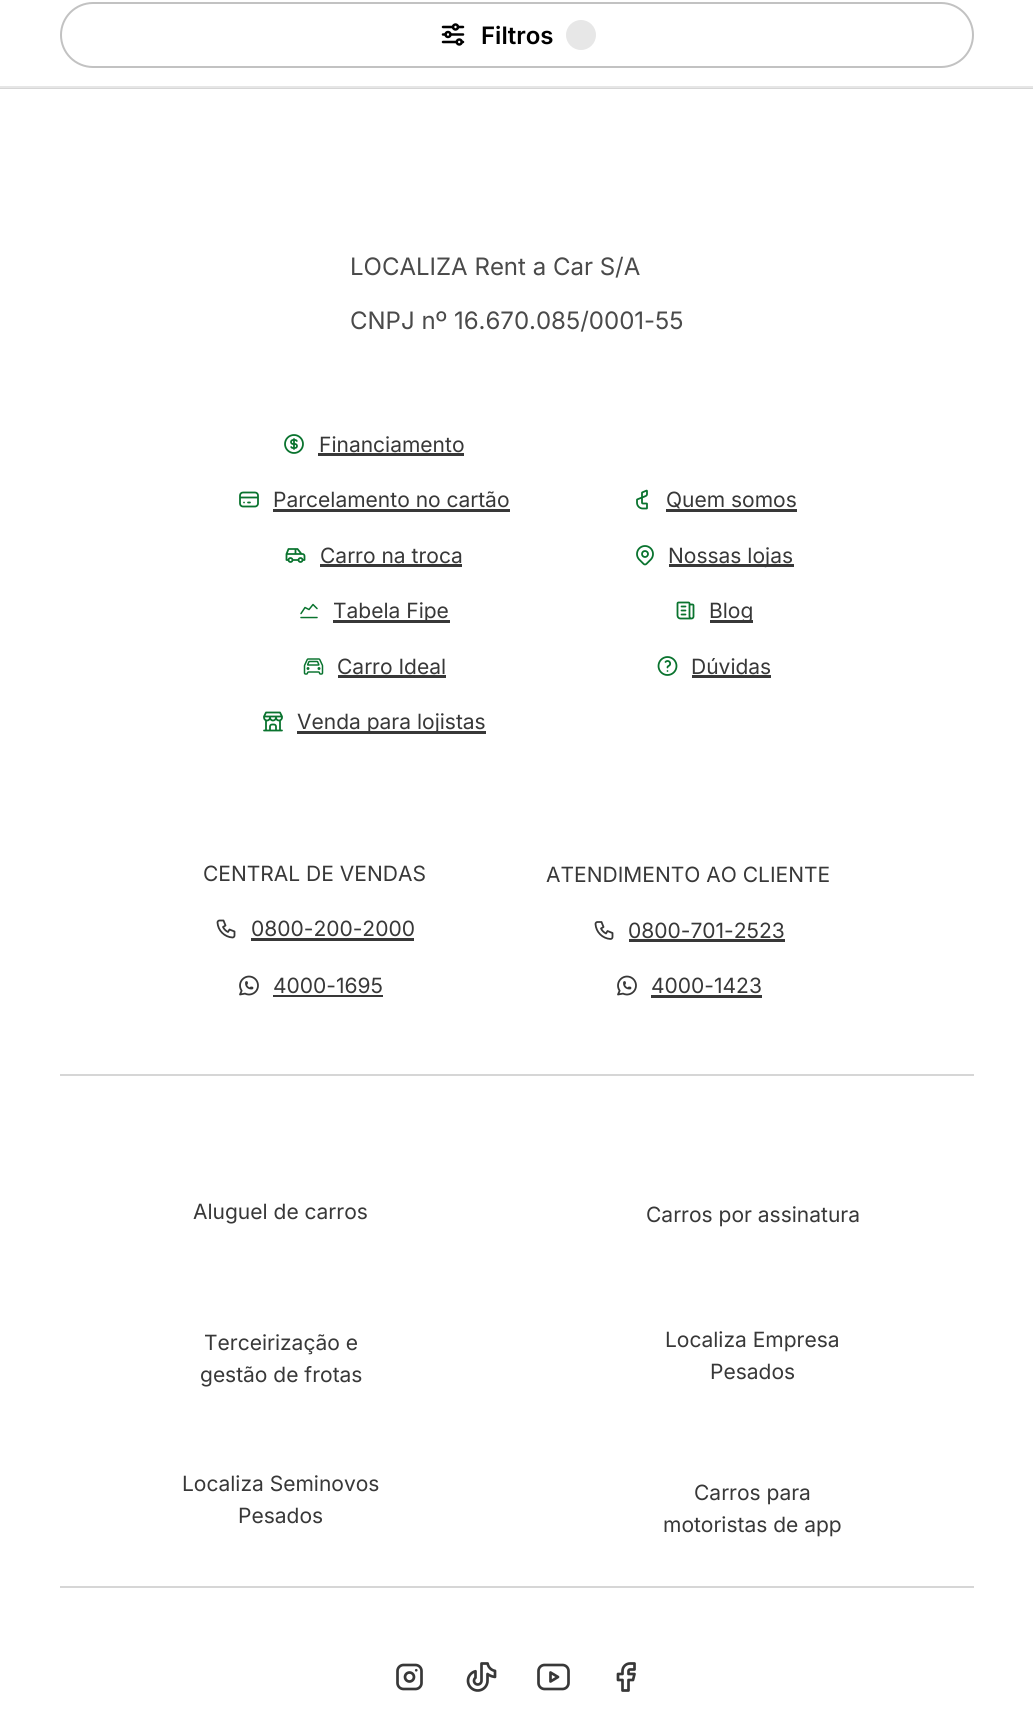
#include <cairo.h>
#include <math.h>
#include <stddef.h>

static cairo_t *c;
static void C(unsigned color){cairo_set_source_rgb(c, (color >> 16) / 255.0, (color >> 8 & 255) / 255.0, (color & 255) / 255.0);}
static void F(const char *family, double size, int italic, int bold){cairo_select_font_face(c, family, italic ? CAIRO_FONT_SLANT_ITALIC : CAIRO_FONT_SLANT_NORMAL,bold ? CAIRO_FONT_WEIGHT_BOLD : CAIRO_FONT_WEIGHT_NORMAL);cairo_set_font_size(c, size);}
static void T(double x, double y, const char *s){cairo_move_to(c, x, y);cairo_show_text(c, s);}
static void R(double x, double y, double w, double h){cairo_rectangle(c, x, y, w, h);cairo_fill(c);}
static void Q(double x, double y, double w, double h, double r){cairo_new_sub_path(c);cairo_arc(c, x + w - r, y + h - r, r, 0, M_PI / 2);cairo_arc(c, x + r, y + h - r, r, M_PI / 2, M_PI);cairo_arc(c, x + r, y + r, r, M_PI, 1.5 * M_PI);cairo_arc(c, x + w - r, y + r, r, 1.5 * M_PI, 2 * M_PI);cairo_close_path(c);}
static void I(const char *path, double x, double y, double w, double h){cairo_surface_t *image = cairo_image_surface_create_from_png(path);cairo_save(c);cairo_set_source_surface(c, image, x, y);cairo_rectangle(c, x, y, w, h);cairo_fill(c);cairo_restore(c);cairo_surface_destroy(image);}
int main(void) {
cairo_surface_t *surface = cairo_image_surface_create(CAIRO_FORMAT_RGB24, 1033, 1723);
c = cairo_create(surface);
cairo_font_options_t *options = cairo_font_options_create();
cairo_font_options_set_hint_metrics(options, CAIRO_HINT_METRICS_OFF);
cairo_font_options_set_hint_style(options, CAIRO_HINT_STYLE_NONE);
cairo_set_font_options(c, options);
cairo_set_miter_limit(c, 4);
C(0xffffff);
cairo_paint(c);
C(0xe6e6e6);
R(0,86,1033,2);
Q(61,3,912,64,32);
C(0xc2c2c2);
cairo_stroke(c);
I("1.png",441,23,24,23);
F("Inter SemiBold",24,0,0);
C(0x000000);
T(481,44,"Filtros");
C(0xe7e7e7);
cairo_new_path(c);
cairo_arc(c,581,35,15,0,2 * M_PI);
cairo_fill(c);
C(0xd6d6d6);
R(0,88,1033,1);
R(60,1074,914,2);
F("Inter",24,0,0);
C(0x4a4a4a);
T(350,275,"LOCALIZA Rent a Car S/A");
T(350,329,"CNPJ nº 16.670.085/0001-55");
I("2.png",284,434,20,20);
F("Inter",21,0,0);
C(0x383838);
T(319,452,"Financiamento");
R(318,453,146,3);
I("3.png",239,491,20,17);
T(273,507,"Parcelamento no cartão");
R(273,509,237,3);
I("4.png",285,548,21,15);
T(320,563,"Carro na troca");
R(320,564,142,3);
I("5.png",300,603,18,16);
R(333,620,117,3);
T(333,618,"Tabela Fipe");
I("6.png",303,658,21,17);
T(337,674,"Carro Ideal");
R(338,675,108,3);
I("7.png",263,711,20,21);
R(297,731,189,3);
T(297,729,"Venda para lojistas");
I("8.png",636,489,12,21);
T(666,507,"Quem somos");
R(666,509,131,3);
I("9.png",636,545,18,21);
R(669,564,125,3);
T(668,563,"Nossas lojas");
I("10.png",676,601,19,19);
R(710,620,43,3);
T(709,618,"Blog");
I("11.png",657,656,21,20);
T(691,674,"Dúvidas");
R(692,675,79,3);
T(203,881,"CENTRAL DE VENDAS");
I("12.png",216,919,20,20);
T(251,936,"0800-200-2000");
R(251,938,163,3);
I("13.png",239,975,20,21);
T(273,993,"4000-1695");
R(273,995,110,2);
T(546,882,"ATENDIMENTO AO CLIENTE");
I("14.png",594,921,20,19);
T(628,938,"0800-701-2523");
R(629,939,156,3);
I("13.png",617,975,20,21);
T(651,993,"4000-1423");
R(651,995,111,3);
C(0xd6d6d6);
R(60,1586,914,2);
C(0x383838);
T(193,1219,"Aluguel de carros");
T(646,1222,"Carros por assinatura");
T(204,1350,"Terceirização e");
T(200,1382,"gestão de frotas");
T(665,1347,"Localiza Empresa");
T(710,1379,"Pesados");
T(182,1491,"Localiza Seminovos");
T(238,1523,"Pesados");
T(694,1500,"Carros para");
T(663,1532,"motoristas de app");
I("15.png",396,1663,27,28);
I("16.png",466,1662,31,30);
I("17.png",537,1663,33,28);
I("18.png",616,1662,20,30);
cairo_surface_write_to_png(surface, "o.png");
cairo_font_options_destroy(options);
cairo_destroy(c);
cairo_surface_destroy(surface);
return 0;
}
